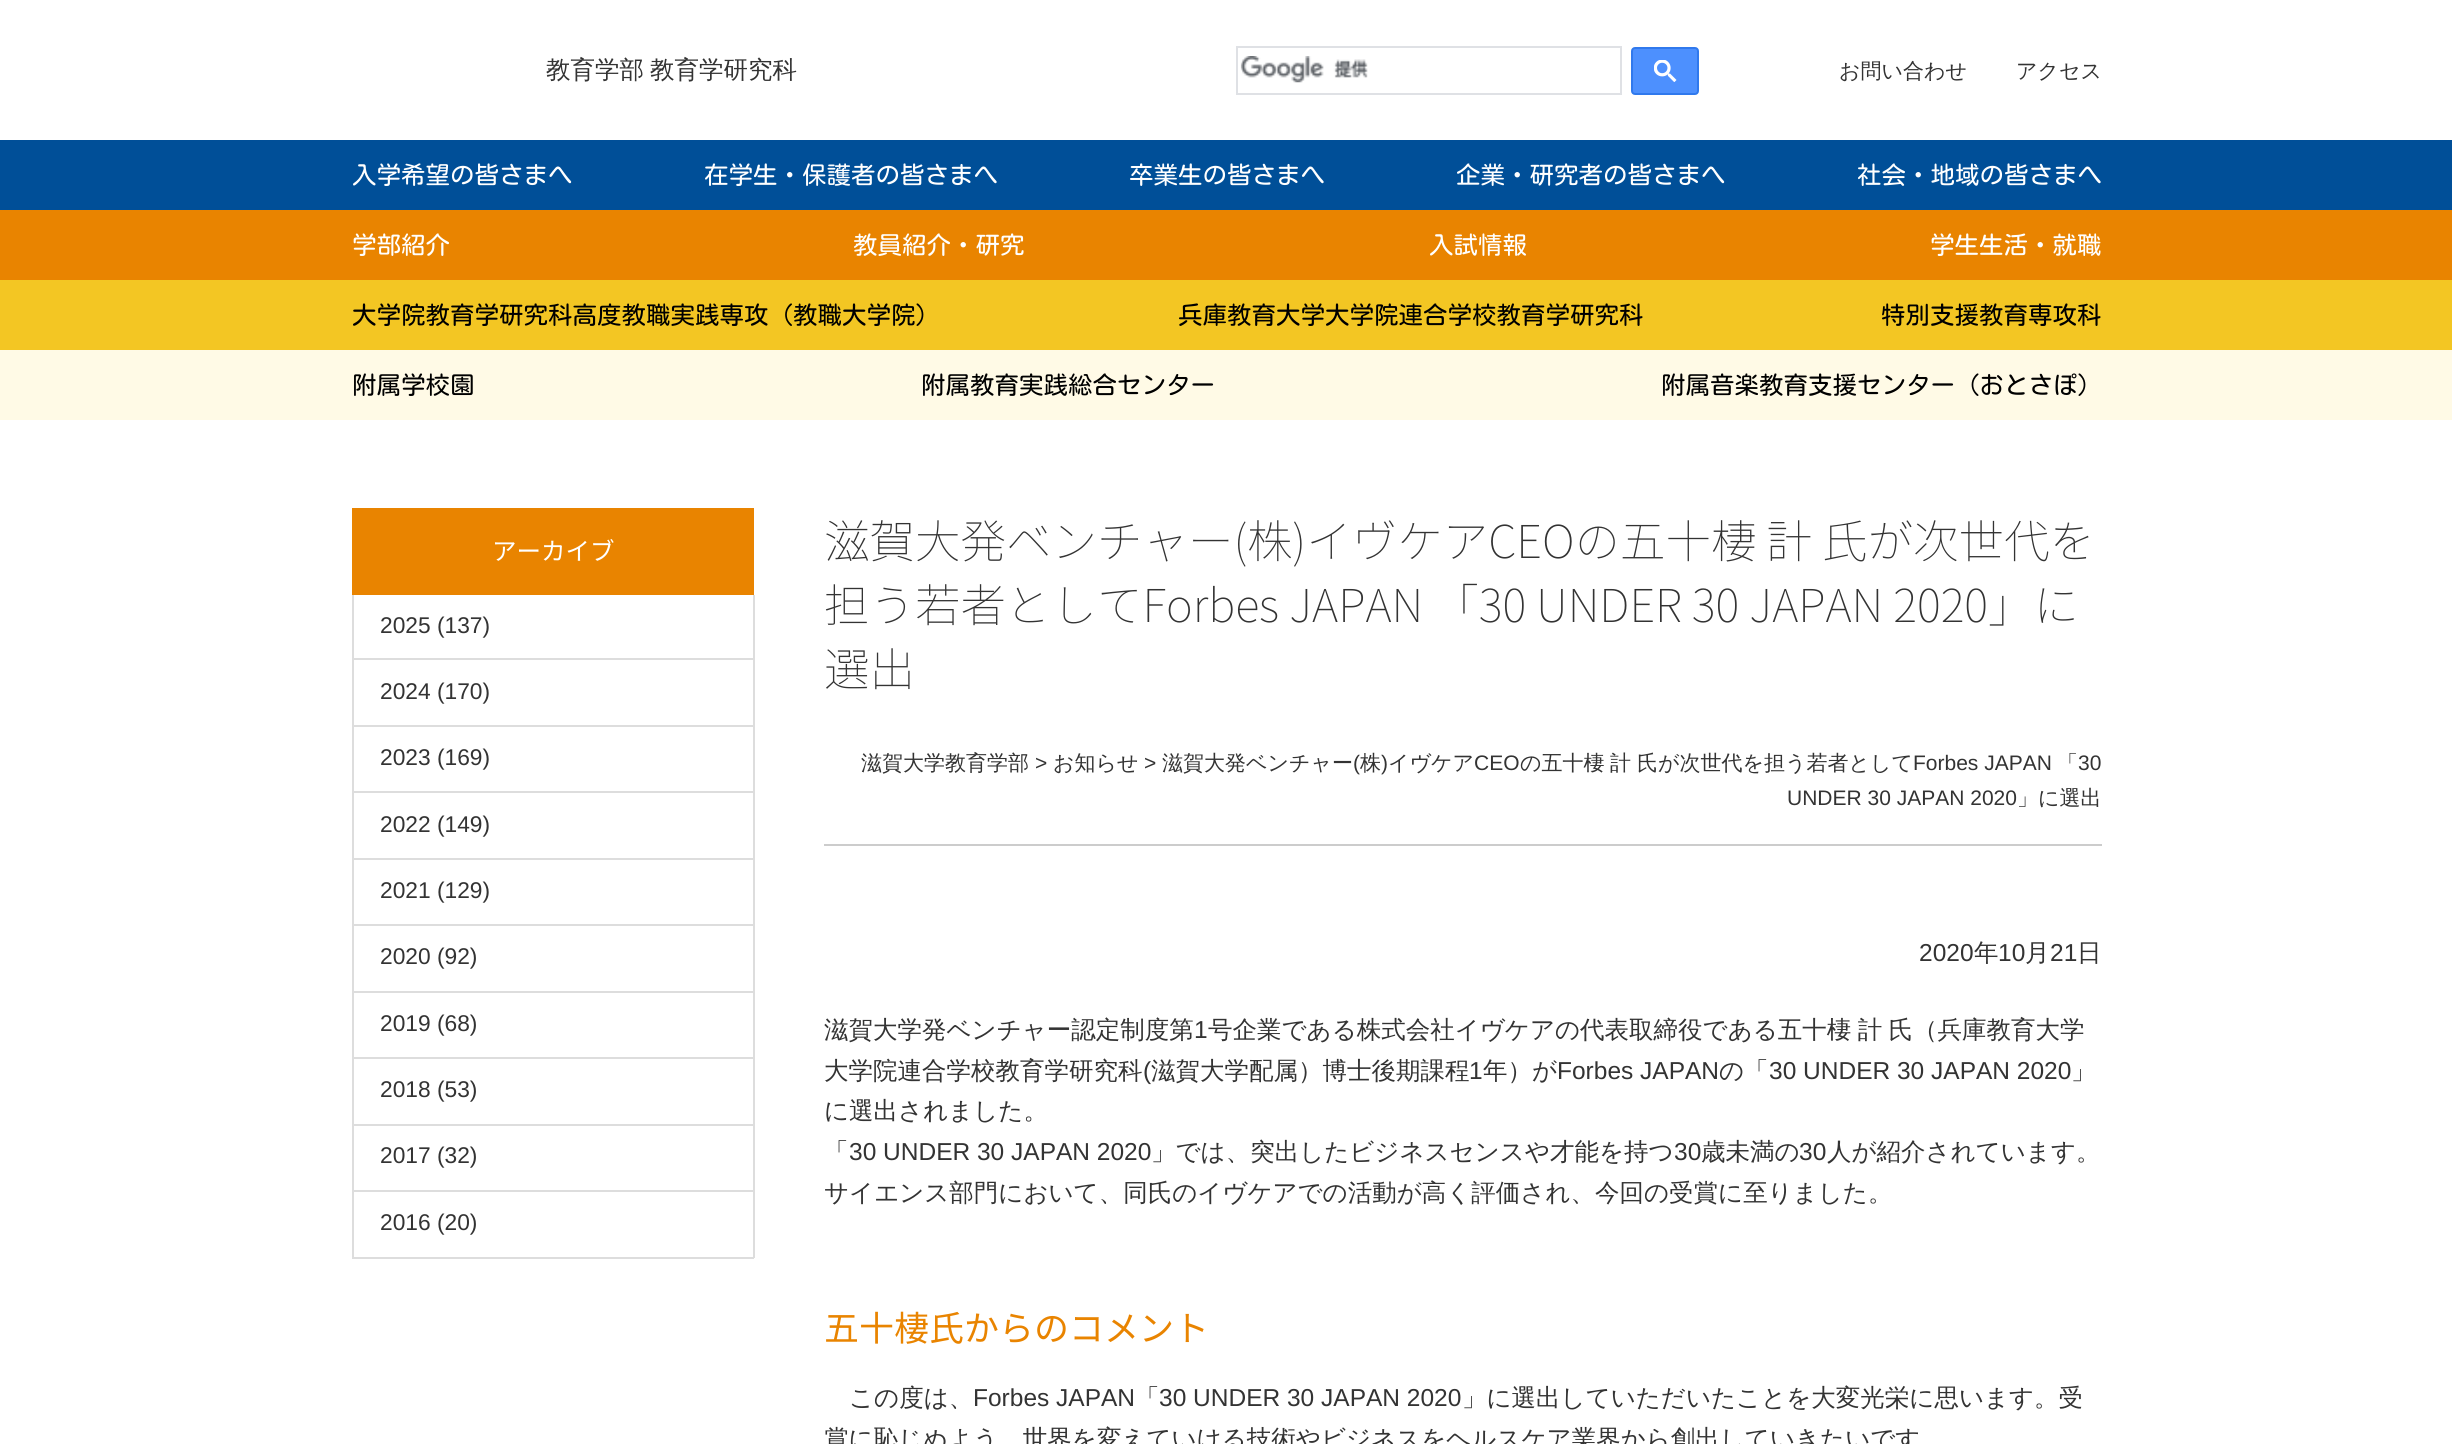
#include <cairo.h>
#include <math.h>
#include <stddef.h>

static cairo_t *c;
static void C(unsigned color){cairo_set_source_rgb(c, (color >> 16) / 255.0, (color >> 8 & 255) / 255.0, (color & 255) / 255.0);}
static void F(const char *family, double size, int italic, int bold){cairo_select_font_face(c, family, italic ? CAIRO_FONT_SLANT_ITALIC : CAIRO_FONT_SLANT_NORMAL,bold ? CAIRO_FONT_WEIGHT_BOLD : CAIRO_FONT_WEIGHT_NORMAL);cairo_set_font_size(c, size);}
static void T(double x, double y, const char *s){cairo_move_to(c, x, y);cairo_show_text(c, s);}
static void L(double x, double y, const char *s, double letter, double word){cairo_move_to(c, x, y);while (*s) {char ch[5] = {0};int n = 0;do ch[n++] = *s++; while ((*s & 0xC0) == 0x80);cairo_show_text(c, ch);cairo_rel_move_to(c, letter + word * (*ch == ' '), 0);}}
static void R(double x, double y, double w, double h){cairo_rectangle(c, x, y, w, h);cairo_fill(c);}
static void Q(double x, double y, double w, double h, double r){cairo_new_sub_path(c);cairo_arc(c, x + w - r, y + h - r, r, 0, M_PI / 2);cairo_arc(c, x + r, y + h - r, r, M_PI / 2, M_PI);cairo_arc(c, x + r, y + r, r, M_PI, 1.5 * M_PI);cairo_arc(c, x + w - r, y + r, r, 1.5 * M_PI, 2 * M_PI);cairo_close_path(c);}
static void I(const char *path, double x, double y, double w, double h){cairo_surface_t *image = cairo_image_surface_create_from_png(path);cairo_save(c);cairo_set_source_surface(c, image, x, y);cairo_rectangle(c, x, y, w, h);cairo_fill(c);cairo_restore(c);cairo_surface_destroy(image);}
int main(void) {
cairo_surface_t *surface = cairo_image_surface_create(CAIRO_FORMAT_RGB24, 2452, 1444);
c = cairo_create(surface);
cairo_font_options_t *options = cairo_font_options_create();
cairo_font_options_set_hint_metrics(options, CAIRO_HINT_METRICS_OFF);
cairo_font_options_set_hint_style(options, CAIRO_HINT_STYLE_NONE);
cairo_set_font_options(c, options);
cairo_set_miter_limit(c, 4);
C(0xffffff);
cairo_paint(c);
F("WenQuanYi Zen Hei Medium",24.5,0,0);
C(0x333333);
T(546,78,"教育学部");
T(650,78,"教育学研究科");
cairo_rectangle(c,1237,47,384,47);
C(0xdfe1e5);
cairo_stroke(c);
I("1.png",1240,56,128,27);
C(0x4d90fe);
Q(1632,48,66,46,3);
cairo_fill_preserve(c);
C(0x3079ed);
cairo_stroke(c);
I("2.png",1654,60,23,22);
F("WenQuanYi Zen Hei Medium",21,0,0);
C(0x333333);
T(1839,78,"お問い合わせ");
T(2016,78,"アクセス");
C(0x004f98);
R(0,140,2452,70);
F("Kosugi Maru",24.5,0,0);
C(0xffffff);
T(352,184,"入学希望の皆さまへ");
T(704,184,"在学生・保護者の皆さまへ");
T(1129,184,"卒業生の皆さまへ");
T(1456,184,"企業・研究者の皆さまへ");
T(1857,184,"社会・地域の皆さまへ");
C(0xe98400);
R(0,210,2452,70);
C(0xffffff);
T(352,254,"学部紹介");
T(853,254,"教員紹介・研究");
T(1429,254,"入試情報");
T(1930,254,"学生生活・就職");
C(0xf3c623);
R(0,280,2452,70);
C(0x000000);
T(352,324,"大学院教育学研究科高度教職実践専攻（教職大学院）");
T(1178,324,"兵庫教育大学大学院連合学校教育学研究科");
T(1881,324,"特別支援教育専攻科");
C(0xfffae6);
R(0,350,2452,70);
C(0x000000);
T(352,394,"附属学校園");
T(921,394,"附属教育実践総合センター");
T(1661,394,"附属音楽教育支援センター（おとさぽ）");
C(0xe98400);
R(352,508,402,87);
F("Noto Sans JP",24.5,0,0);
C(0xffffff);
T(492,560,"アーカイブ");
C(0xdddddd);
R(753,595,2,131);
R(352,658,402,2);
R(352,595,2,65);
F("Liberation Sans",22.75,0,0);
C(0x333333);
T(380,633,"2025 (137)");
C(0xdddddd);
R(352,725,402,2);
R(352,660,2,66);
C(0x333333);
T(380,699,"2024 (170)");
C(0xdddddd);
R(753,726,2,133);
R(352,791,402,2);
R(352,726,2,67);
C(0x333333);
T(380,765,"2023 (169)");
C(0xdddddd);
R(352,858,402,2);
R(352,793,2,66);
C(0x333333);
T(380,832,"2022 (149)");
C(0xdddddd);
R(753,859,2,133);
R(352,924,402,2);
R(352,859,2,67);
C(0x333333);
T(380,898,"2021 (129)");
C(0xdddddd);
R(352,991,402,2);
R(352,926,2,66);
C(0x333333);
T(380,964,"2020 (92)");
C(0xdddddd);
R(753,992,2,133);
R(352,1057,402,2);
R(352,992,2,67);
C(0x333333);
T(380,1031,"2019 (68)");
C(0xdddddd);
R(352,1124,402,2);
R(352,1059,2,66);
C(0x333333);
T(380,1097,"2018 (53)");
C(0xdddddd);
R(753,1125,2,133);
R(352,1190,402,2);
R(352,1125,2,67);
C(0x333333);
T(380,1163,"2017 (32)");
C(0xdddddd);
R(352,1257,402,2);
R(352,1192,2,66);
C(0x333333);
T(380,1230,"2016 (20)");
C(0xcccccc);
R(824,844,1278,2);
F("Noto Sans JP Thin",45.5,0,0);
C(0x333333);
T(824,558,"滋賀大発ベンチャー(株)イヴケアCEOの五十棲 計 氏が次世代を");
T(824,622,"担う若者としてForbes JAPAN 「30 UNDER 30 JAPAN 2020」に");
T(824,686,"選出");
F("WenQuanYi Zen Hei Medium",21,0,0);
T(861,770,"滋賀大学教育学部");
F("Liberation Sans",21,0,0);
T(1035,770,">");
F("WenQuanYi Zen Hei Medium",21,0,0);
T(1053,770,"お知らせ");
F("Liberation Sans",21,0,0);
T(1144,770,">");
F("WenQuanYi Zen Hei Medium",21,0,0);
T(1162,770,"滋賀大発ベンチャー");
F("Liberation Sans",21,0,0);
T(1353,770,"(");
F("WenQuanYi Zen Hei Medium",21,0,0);
T(1360,770,"株");
F("Liberation Sans",21,0,0);
T(1381,770,")");
F("WenQuanYi Zen Hei Medium",21,0,0);
T(1388,770,"イヴケア");
F("Liberation Sans",21,0,0);
T(1474,770,"CEO");
F("WenQuanYi Zen Hei Medium",21,0,0);
T(1520,770,"の五十棲");
T(1610,770,"計");
T(1637,770,"氏が次世代を担う若者として");
F("Liberation Sans",21,0,0);
T(1913,770,"Forbes JAPAN");
F("WenQuanYi Zen Hei Medium",21,0,0);
T(2057,770,"「");
F("Liberation Sans",21,0,0);
T(2078,770,"30");
T(1787,805,"UNDER 30 JAPAN 2020");
F("WenQuanYi Zen Hei Medium",21,0,0);
T(2017,805,"」に選出");
F("Liberation Sans",24.5,0,0);
T(1919,961,"2020");
F("WenQuanYi Zen Hei Medium",24.5,0,0);
T(1974,961,"年");
F("Liberation Sans",24.5,0,0);
T(1998,961,"10");
F("WenQuanYi Zen Hei Medium",24.5,0,0);
T(2025,961,"月");
F("Liberation Sans",24.5,0,0);
T(2050,961,"21");
F("WenQuanYi Zen Hei Medium",24.5,0,0);
T(2077,961,"日");
T(824,1038,"滋賀大学発ベンチャー認定制度第");
F("Liberation Sans",24.5,0,0);
T(1194,1038,"1");
F("WenQuanYi Zen Hei Medium",24.5,0,0);
L(1208,1038,"号企業である株式会社イヴケアの代表取締役である五十棲 計 氏（兵庫教育大学",0,-1);
T(824,1079,"大学院連合学校教育学研究科");
F("Liberation Sans",24.5,0,0);
T(1143,1079,"(");
F("WenQuanYi Zen Hei Medium",24.5,0,0);
T(1151,1079,"滋賀大学配属）博士後期課程");
F("Liberation Sans",24.5,0,0);
T(1469,1079,"1");
F("WenQuanYi Zen Hei Medium",24.5,0,0);
T(1483,1079,"年）が");
F("Liberation Sans",24.5,0,0);
T(1557,1079,"Forbes JAPAN");
F("WenQuanYi Zen Hei Medium",24.5,0,0);
T(1719,1079,"の「");
F("Liberation Sans",24.5,0,0);
T(1769,1079,"30 UNDER 30 JAPAN 2020");
F("WenQuanYi Zen Hei Medium",24.5,0,0);
T(2071,1079,"」");
T(824,1119,"に選出されました。");
T(824,1160,"「");
F("Liberation Sans",24.5,0,0);
T(849,1160,"30 UNDER 30 JAPAN 2020");
F("WenQuanYi Zen Hei Medium",24.5,0,0);
T(1151,1160,"」では、突出したビジネスセンスや才能を持つ");
F("Liberation Sans",24.5,0,0);
T(1674,1160,"30");
F("WenQuanYi Zen Hei Medium",24.5,0,0);
T(1701,1160,"歳未満の");
F("Liberation Sans",24.5,0,0);
T(1799,1160,"30");
F("WenQuanYi Zen Hei Medium",24.5,0,0);
T(1827,1160,"人が紹介されています。");
T(824,1201,"サイエンス部門において、同氏のイヴケアでの活動が高く評価され、今回の受賞に至りました。");
F("Noto Sans JP",35,0,0);
C(0xe98400);
T(824,1341,"五十棲氏からのコメント");
F("WenQuanYi Zen Hei Medium",24.5,0,0);
C(0x333333);
T(849,1406,"この度は、");
F("Liberation Sans",24.5,0,0);
T(973,1406,"Forbes JAPAN");
F("WenQuanYi Zen Hei Medium",24.5,0,0);
T(1135,1406,"「");
F("Liberation Sans",24.5,0,0);
T(1159,1406,"30 UNDER 30 JAPAN 2020");
F("WenQuanYi Zen Hei Medium",24.5,0,0);
T(1462,1406,"」に選出していただいたことを大変光栄に思います。受");
T(824,1447,"賞に恥じぬよう、世界を変えていける技術やビジネスをヘルスケア業界から創出していきたいです");
cairo_surface_write_to_png(surface, "o.png");
cairo_font_options_destroy(options);
cairo_destroy(c);
cairo_surface_destroy(surface);
return 0;
}
